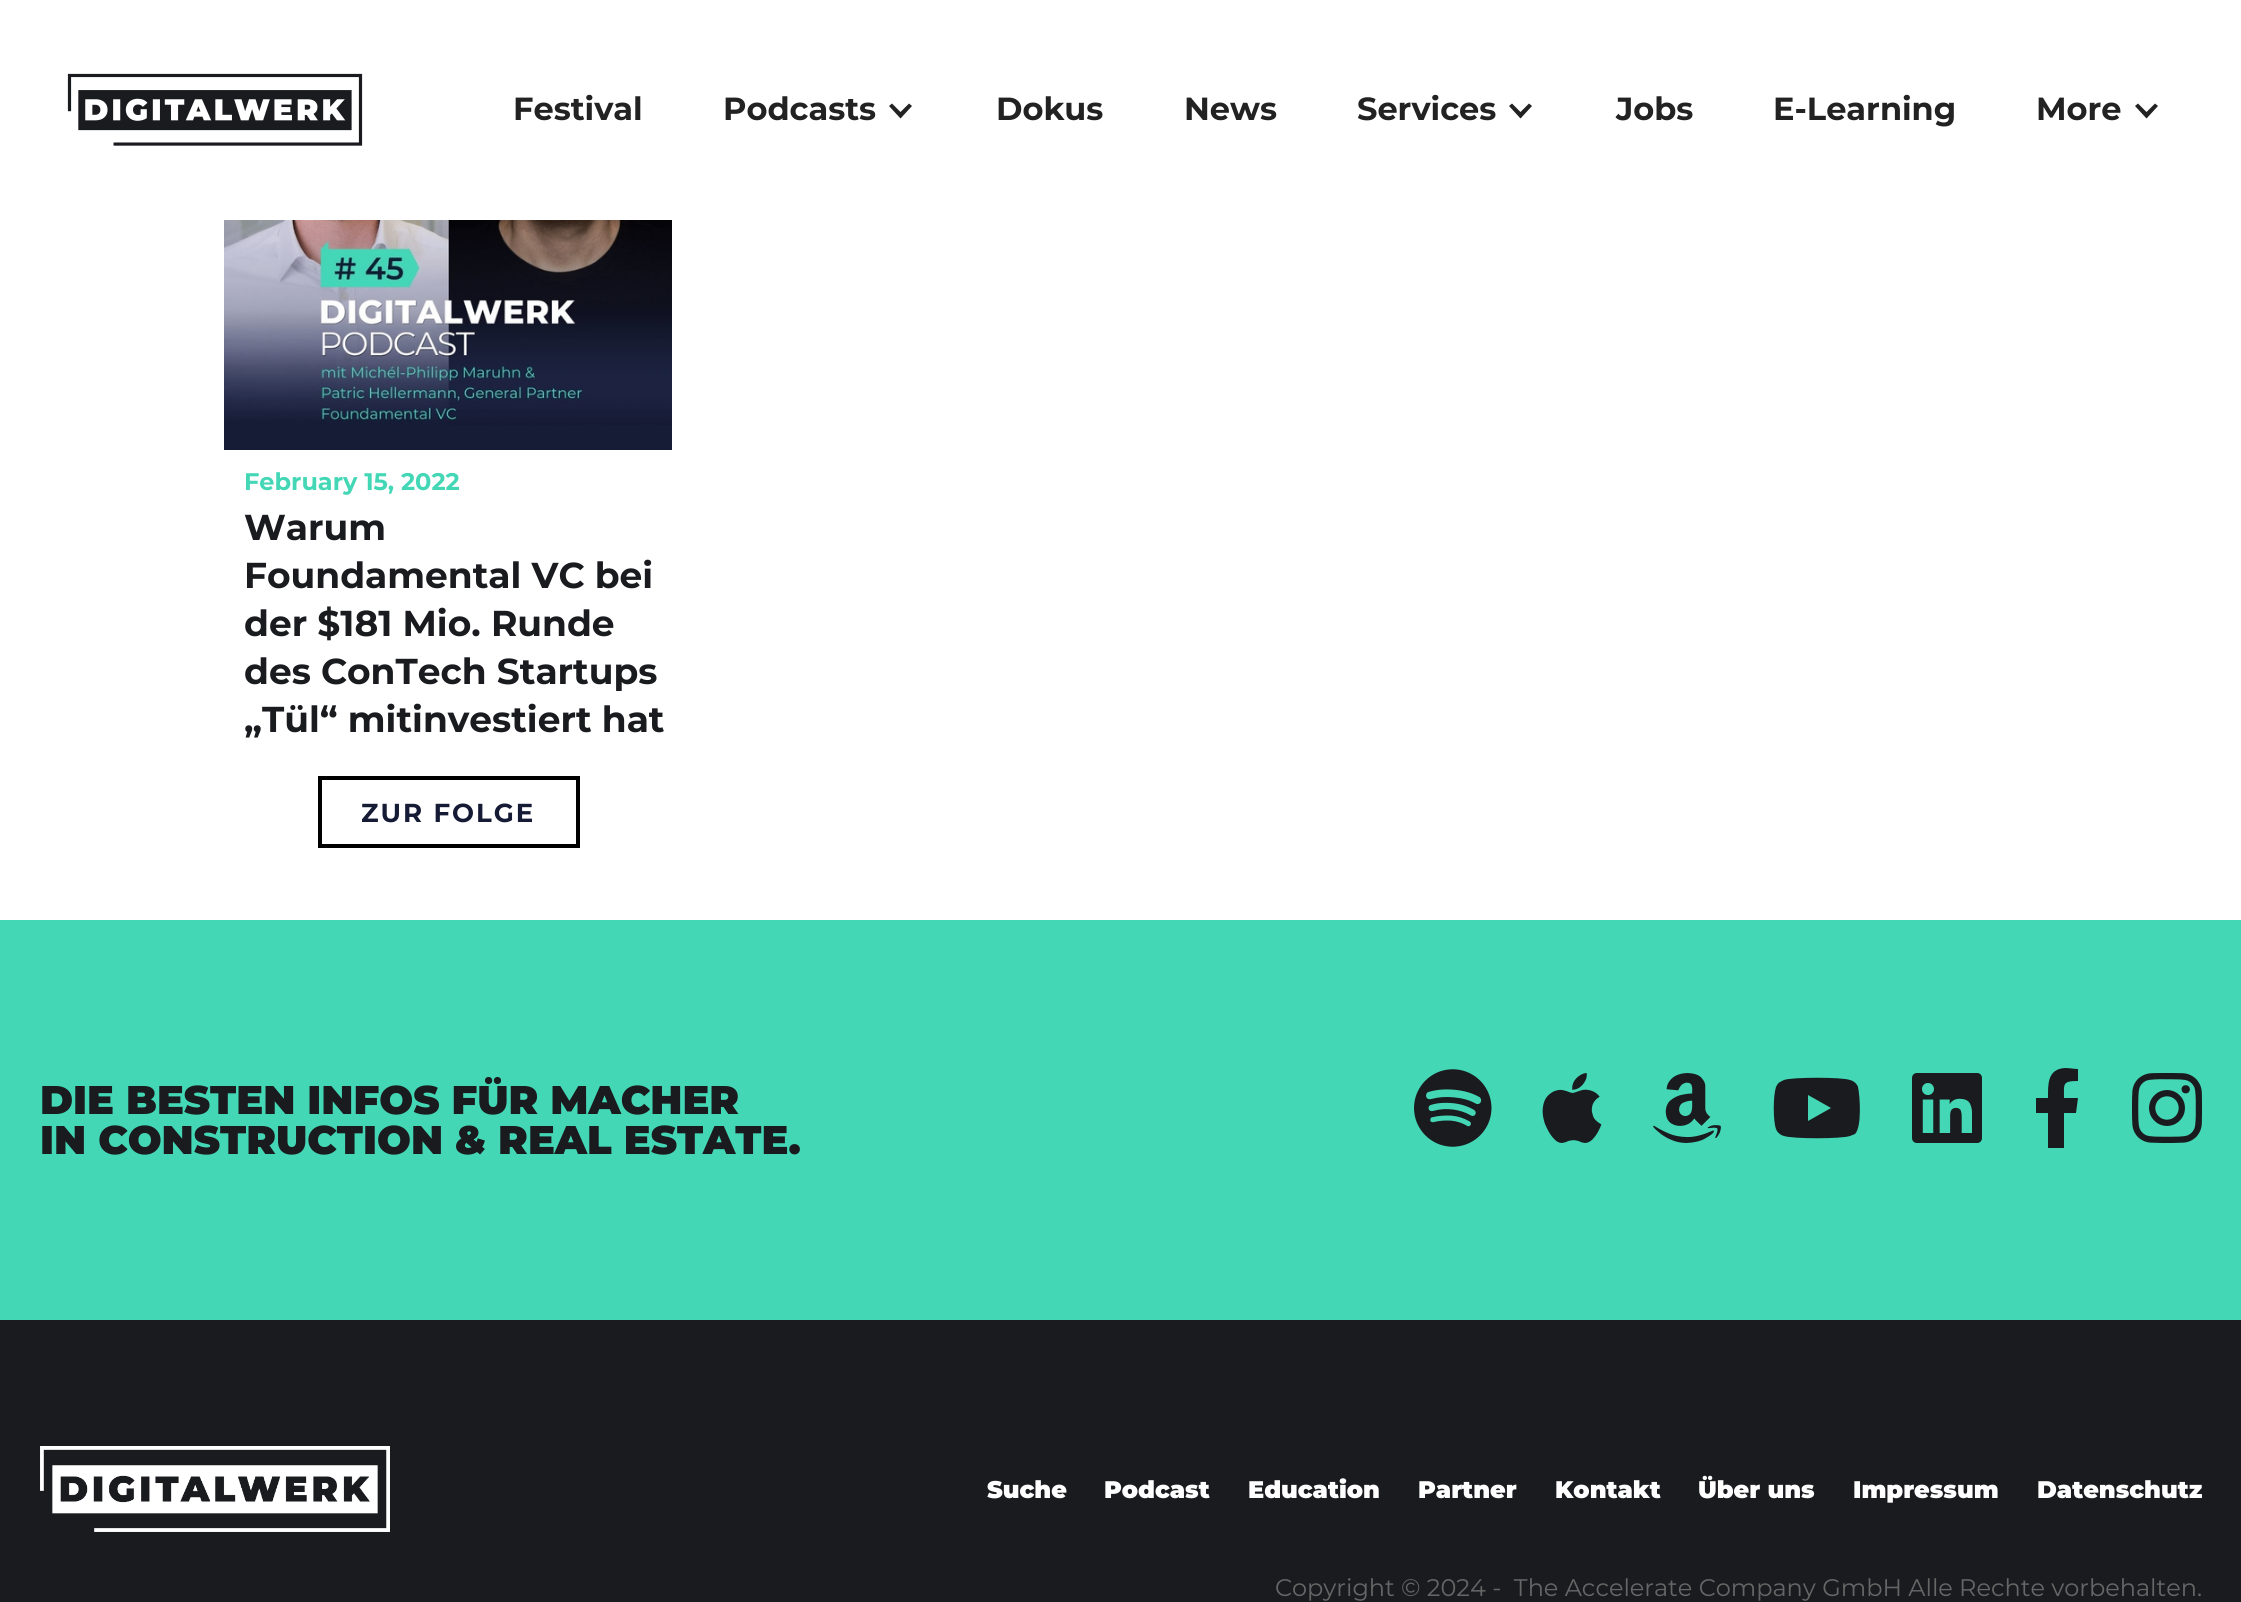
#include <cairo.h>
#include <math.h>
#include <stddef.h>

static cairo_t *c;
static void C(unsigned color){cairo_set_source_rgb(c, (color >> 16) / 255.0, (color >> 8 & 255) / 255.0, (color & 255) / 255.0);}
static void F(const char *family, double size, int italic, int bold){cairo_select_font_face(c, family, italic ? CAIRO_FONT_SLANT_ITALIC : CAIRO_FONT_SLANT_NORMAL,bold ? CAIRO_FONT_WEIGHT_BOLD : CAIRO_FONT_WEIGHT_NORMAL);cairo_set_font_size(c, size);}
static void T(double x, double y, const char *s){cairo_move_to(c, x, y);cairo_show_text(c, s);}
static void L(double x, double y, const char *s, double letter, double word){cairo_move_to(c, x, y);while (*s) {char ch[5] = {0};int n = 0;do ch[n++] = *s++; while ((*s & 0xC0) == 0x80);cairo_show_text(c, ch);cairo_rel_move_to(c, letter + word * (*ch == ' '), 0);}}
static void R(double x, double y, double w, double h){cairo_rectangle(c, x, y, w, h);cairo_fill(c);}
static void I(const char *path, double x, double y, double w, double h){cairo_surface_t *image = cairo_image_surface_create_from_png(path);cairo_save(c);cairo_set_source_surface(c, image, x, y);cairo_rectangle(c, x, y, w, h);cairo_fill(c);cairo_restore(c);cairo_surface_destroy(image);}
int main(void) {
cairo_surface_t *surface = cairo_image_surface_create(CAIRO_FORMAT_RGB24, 2241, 1602);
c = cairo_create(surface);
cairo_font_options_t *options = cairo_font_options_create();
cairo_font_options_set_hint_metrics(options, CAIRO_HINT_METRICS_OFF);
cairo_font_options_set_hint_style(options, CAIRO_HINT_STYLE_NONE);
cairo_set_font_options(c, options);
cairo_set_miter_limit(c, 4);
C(0xffffff);
cairo_paint(c);
I("1.png",67,73,296,73);
F("Montserrat",32,0,1);
C(0x222222);
T(513,120,"Festival");
T(723,120,"Podcasts");
cairo_new_path(c);
cairo_move_to(c,909,103.5);
cairo_line_to(c,900.5,112);
cairo_line_to(c,892,103.5);
cairo_line_to(c,889,106);
cairo_line_to(c,900.5,118.5);
cairo_line_to(c,912,106);
cairo_close_path(c);
cairo_fill(c);
T(996,120,"Dokus");
T(1184,120,"News");
T(1357,120,"Services");
cairo_new_path(c);
cairo_move_to(c,1529,103.5);
cairo_line_to(c,1520.5,112);
cairo_line_to(c,1512,103.5);
cairo_line_to(c,1509,106);
cairo_line_to(c,1520.5,118.5);
cairo_line_to(c,1532,106);
cairo_close_path(c);
cairo_fill(c);
T(1616,120,"Jobs");
T(1773,120,"E-Learning");
T(2036,120,"More");
cairo_new_path(c);
cairo_move_to(c,2155,103.5);
cairo_line_to(c,2146.5,112);
cairo_line_to(c,2138,103.5);
cairo_line_to(c,2135,106);
cairo_line_to(c,2146.5,118.5);
cairo_line_to(c,2158,106);
cairo_close_path(c);
cairo_fill(c);
I("2.png",224,220,448,230);
F("Montserrat",24,0,1);
C(0x44d7b6);
T(244,490,"February 15, 2022");
F("Montserrat",36,0,1);
C(0x1a1b1f);
T(244,540,"Warum");
T(244,588,"Foundamental VC bei");
T(244,636,"der $181 Mio. Runde");
T(244,684,"des ConTech Startups");
T(244,732,"„Tül“ mitinvestiert hat");
cairo_rectangle(c,320,778,258,68);
C(0x000000);
cairo_set_line_width(c,4);
cairo_stroke(c);
F("Montserrat",26,0,1);
C(0x161b35);
L(361,822,"ZUR FOLGE",2,0);
C(0x44d7b6);
R(0,920,2241,400);
F("Montserrat Black",40,0,0);
C(0x1a1b1f);
T(40,1114,"DIE BESTEN INFOS FÜR MACHER");
T(40,1154,"IN CONSTRUCTION & REAL ESTATE.");
I("3.png",1414,1069,78,78);
I("4.png",1542,1073,60,70);
I("5.png",1653,1073,68,70);
cairo_new_path(c);
cairo_move_to(c,1858,1087);
cairo_curve_to(c,1857,1084,1854,1081,1850,1080);
cairo_curve_to(c,1842,1077,1792,1077,1784,1080);
cairo_line_to(c,1780,1082);
cairo_curve_to(c,1778,1083,1777,1085,1776,1087);
cairo_curve_to(c,1773,1096,1773,1121,1776,1129);
cairo_curve_to(c,1777,1132,1780,1135,1784,1136);
cairo_curve_to(c,1793,1139,1841,1139,1850,1136);
cairo_line_to(c,1855,1134);
cairo_curve_to(c,1862,1127,1860,1096,1858,1087);
cairo_close_path(c);
cairo_move_to(c,1808,1121);
cairo_line_to(c,1808,1095);
cairo_line_to(c,1831,1108);
cairo_close_path(c);
cairo_fill(c);
I("6.png",1912,1073,70,70);
cairo_new_path(c);
cairo_move_to(c,2076,1113);
cairo_line_to(c,2078,1098);
cairo_line_to(c,2064,1098);
cairo_curve_to(c,2064,1084,2062,1081,2078,1081);
cairo_line_to(c,2078,1069);
cairo_curve_to(c,2074,1069,2070,1068,2065,1068);
cairo_curve_to(c,2047,1069,2048,1085,2048,1098);
cairo_line_to(c,2036,1098);
cairo_line_to(c,2036,1113);
cairo_line_to(c,2048,1113);
cairo_line_to(c,2048,1148);
cairo_line_to(c,2064,1148);
cairo_line_to(c,2064,1113);
cairo_close_path(c);
cairo_fill(c);
I("7.png",2132,1073,70,70);
R(0,1320,2241,282);
I("8.png",40,1446,350,86);
F("Montserrat Black",24,0,0);
C(0xffffff);
T(987,1498,"Suche");
T(1104,1498,"Podcast");
T(1248,1498,"Education");
T(1418,1498,"Partner");
T(1555,1498,"Kontakt");
T(1698,1498,"Über uns");
T(1853,1498,"Impressum");
T(2037,1498,"Datenschutz");
F("Montserrat",24,0,0);
C(0x666666);
T(1275,1596,"Copyright © 2024 -  The Accelerate Company GmbH Alle Rechte vorbehalten.");
cairo_surface_write_to_png(surface, "o.png");
cairo_font_options_destroy(options);
cairo_destroy(c);
cairo_surface_destroy(surface);
return 0;
}
